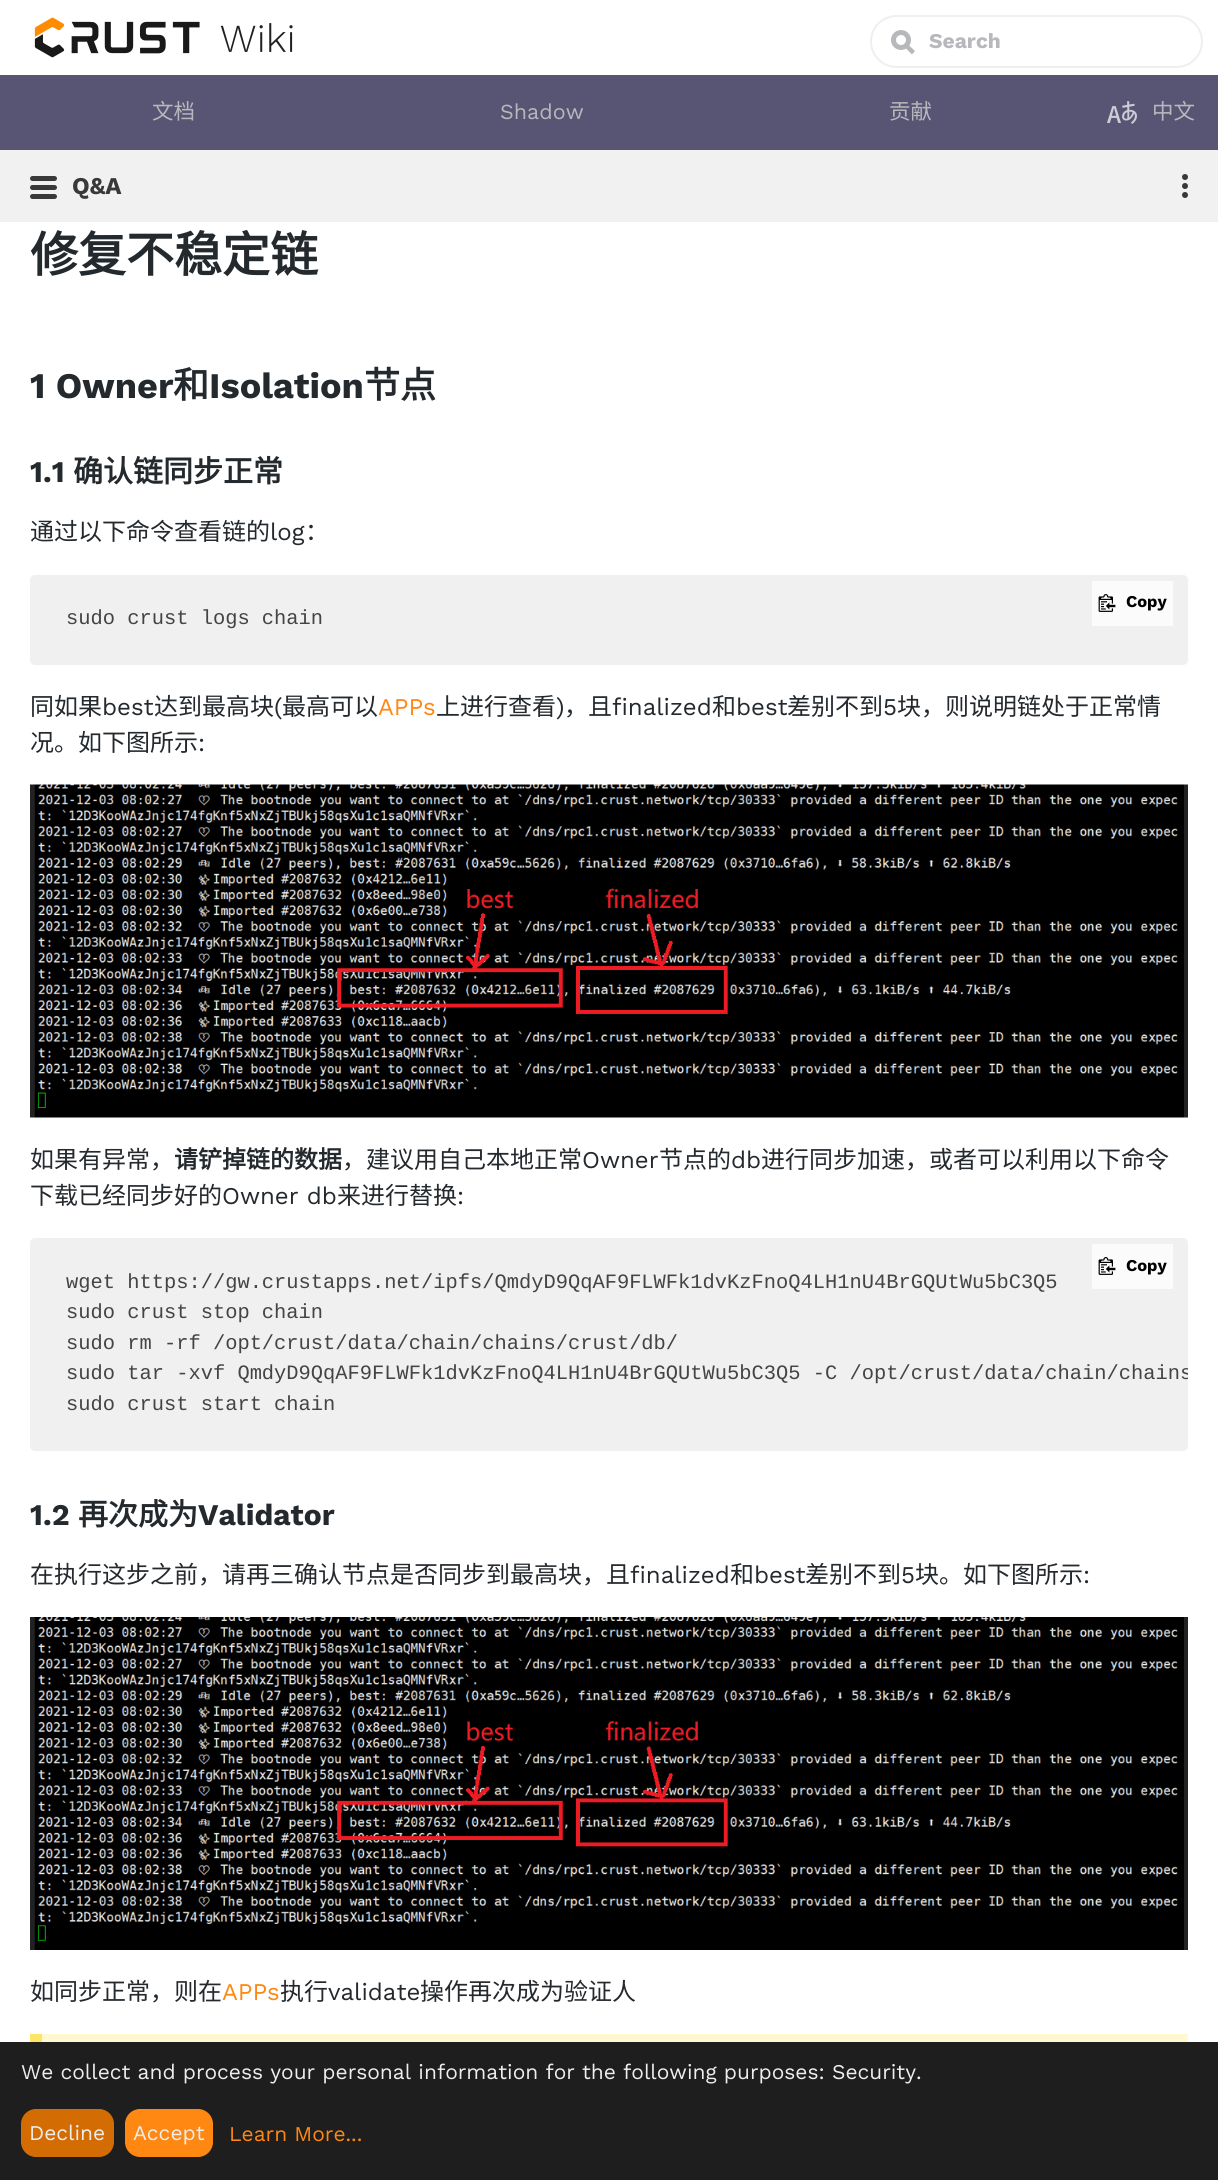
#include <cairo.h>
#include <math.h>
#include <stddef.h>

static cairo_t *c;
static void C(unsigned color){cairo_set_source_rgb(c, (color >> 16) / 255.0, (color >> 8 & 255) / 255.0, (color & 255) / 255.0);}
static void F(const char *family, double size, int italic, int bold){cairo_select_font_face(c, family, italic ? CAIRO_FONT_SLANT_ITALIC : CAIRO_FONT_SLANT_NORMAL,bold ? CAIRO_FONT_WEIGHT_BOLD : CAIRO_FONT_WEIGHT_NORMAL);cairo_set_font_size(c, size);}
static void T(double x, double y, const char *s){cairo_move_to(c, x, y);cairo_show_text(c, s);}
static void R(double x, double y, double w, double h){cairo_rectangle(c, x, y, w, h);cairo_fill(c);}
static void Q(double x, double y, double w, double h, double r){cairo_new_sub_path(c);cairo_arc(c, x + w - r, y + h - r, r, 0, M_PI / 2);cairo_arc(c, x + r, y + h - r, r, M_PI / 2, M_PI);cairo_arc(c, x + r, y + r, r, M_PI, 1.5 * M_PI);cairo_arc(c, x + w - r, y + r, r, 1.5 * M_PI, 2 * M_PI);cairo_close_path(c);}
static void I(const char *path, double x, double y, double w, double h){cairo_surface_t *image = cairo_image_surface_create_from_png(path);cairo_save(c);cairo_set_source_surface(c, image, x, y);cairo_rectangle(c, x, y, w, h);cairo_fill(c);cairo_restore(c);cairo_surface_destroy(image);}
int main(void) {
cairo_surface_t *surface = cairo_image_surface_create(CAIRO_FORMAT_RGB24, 1218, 2180);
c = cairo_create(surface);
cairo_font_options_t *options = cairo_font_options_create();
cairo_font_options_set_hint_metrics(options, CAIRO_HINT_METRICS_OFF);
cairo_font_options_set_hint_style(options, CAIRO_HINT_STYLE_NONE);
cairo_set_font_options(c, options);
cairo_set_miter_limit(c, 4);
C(0xffffff);
cairo_paint(c);
I("1.png",34,17,259,41);
C(0x585474);
R(0,75,1218,75);
Q(871,16,331,51,25.5);
C(0xefefef);
cairo_stroke(c);
cairo_arc(c,901,40,7.5,0,2 * M_PI);
C(0xb7b8bb);
cairo_set_line_width(c,5);
cairo_stroke(c);
F("Work Sans",21,0,1);
T(929,48,"Search");
cairo_new_path(c);
cairo_move_to(c,904.5,47);
cairo_line_to(c,907.5,44);
cairo_line_to(c,915,51);
cairo_line_to(c,912,54.5);
cairo_close_path(c);
cairo_fill(c);
F("Noto Sans CJK SC",21.5,0,0);
T(152,119,"文档");
F("Work Sans",21.5,0,0);
T(500,119,"Shadow");
F("Noto Sans CJK SC",21.5,0,0);
T(889,119,"贡献");
I("2.png",1107,101,30,23);
T(1152,119,"中文");
C(0xf1f1f1);
R(0,150,1218,72);
C(0x393939);
Q(30,176,27,5,2.5);
cairo_fill(c);
Q(30,185,27,5,2.5);
cairo_fill(c);
Q(30,194,27,5,2.5);
cairo_fill(c);
F("Work Sans",24,0,1);
T(72,194,"Q&A");
cairo_new_path(c);
cairo_arc(c,1185,186,2,0,2 * M_PI);
cairo_fill_preserve(c);
cairo_set_line_width(c,2);
cairo_stroke(c);
cairo_arc(c,1185,177,2,0,2 * M_PI);
cairo_fill_preserve(c);
cairo_stroke(c);
cairo_arc(c,1185,195,2,0,2 * M_PI);
cairo_fill_preserve(c);
cairo_stroke(c);
F("Noto Sans CJK SC",48,0,1);
C(0x24292e);
T(30,272,"修复不稳定链");
F("Work Sans",36,0,1);
T(30,398,"1 Owner");
F("Noto Sans CJK SC",36,0,1);
T(173,398,"和");
F("Work Sans",36,0,1);
T(209,398,"Isolation");
F("Noto Sans CJK SC",36,0,1);
T(364,398,"节点");
F("Work Sans",30,0,1);
T(30,482,"1.1");
F("Noto Sans CJK SC",30,0,1);
T(73,482,"确认链同步正常");
F("Noto Sans CJK SC",24,0,0);
T(30,540,"通过以下命令查看链的");
F("Work Sans",24,0,0);
T(270,540,"log");
F("Noto Sans CJK SC",24,0,0);
T(305,540,"：");
C(0xf0f0f0);
Q(30,575,1158,90,5);
cairo_fill(c);
C(0xfbfbfb);
R(1092,581,81,45);
I("3.png",1098,594,18,18);
F("Work Sans",16.5,0,1);
C(0x000000);
T(1126,607,"Copy");
F("Liberation Mono",20.4,0,0);
C(0x444444);
T(66,624,"sudo crust logs chain");
F("Noto Sans CJK SC",24,0,0);
C(0x24292e);
T(30,715,"同如果");
F("Work Sans",24,0,0);
T(102,715,"best");
F("Noto Sans CJK SC",24,0,0);
T(154,715,"达到最高块");
F("Work Sans",24,0,0);
T(274,715,"(");
F("Noto Sans CJK SC",24,0,0);
T(282,715,"最高可以");
F("Work Sans",24,0,0);
C(0xff8812);
T(378,715,"APPs");
F("Noto Sans CJK SC",24,0,0);
C(0x24292e);
T(436,715,"上进行查看");
F("Work Sans",24,0,0);
T(556,715,")");
F("Noto Sans CJK SC",24,0,0);
T(564,715,"，且");
F("Work Sans",24,0,0);
T(612,715,"finalized");
F("Noto Sans CJK SC",24,0,0);
T(712,715,"和");
F("Work Sans",24,0,0);
T(736,715,"best");
F("Noto Sans CJK SC",24,0,0);
T(787,715,"差别不到");
F("Work Sans",24,0,0);
T(883,715,"5");
F("Noto Sans CJK SC",24,0,0);
T(897,715,"块，则说明链处于正常情");
T(30,751,"况。如下图所示");
F("Work Sans",24,0,0);
T(198,751,":");
I("4.png",30,784,1158,334);
F("Noto Sans CJK SC",24,0,0);
T(30,1168,"如果有异常，");
F("Noto Sans CJK SC",24,0,1);
T(174,1168,"请铲掉链的数据");
F("Noto Sans CJK SC",24,0,0);
T(342,1168,"，建议用自己本地正常");
F("Work Sans",24,0,0);
T(582,1168,"Owner");
F("Noto Sans CJK SC",24,0,0);
T(659,1168,"节点的");
F("Work Sans",24,0,0);
T(731,1168,"db");
F("Noto Sans CJK SC",24,0,0);
T(761,1168,"进行同步加速，或者可以利用以下命令");
T(30,1204,"下载已经同步好的");
F("Work Sans",24,0,0);
T(222,1204,"Owner db");
F("Noto Sans CJK SC",24,0,0);
T(337,1204,"来进行替换");
F("Work Sans",24,0,0);
T(457,1204,":");
C(0xf0f0f0);
Q(30,1238,1158,213,5);
cairo_fill(c);
C(0xfbfbfb);
R(1092,1244,81,45);
I("3.png",1098,1257,18,18);
F("Work Sans",16.5,0,1);
C(0x000000);
T(1126,1271,"Copy");
F("Liberation Mono",20.4,0,0);
C(0x444444);
T(66,1288,"wget https://gw.crustapps.net/ipfs/QmdyD9QqAF9FLWFk1dvKzFnoQ4LH1nU4BrGQUtWu5bC3Q5");
T(66,1318,"sudo crust stop chain");
T(66,1349,"sudo rm -rf /opt/crust/data/chain/chains/crust/db/");
cairo_save(c);
Q(30,1238,1158,213,5);
cairo_clip(c);
T(66,1379,"sudo tar -xvf QmdyD9QqAF9FLWFk1dvKzFnoQ4LH1nU4BrGQUtWu5bC3Q5 -C /opt/crust/data/chain/chains");
cairo_restore(c);
T(66,1410,"sudo crust start chain");
F("Work Sans",30,0,1);
C(0x24292e);
T(30,1525,"1.2");
F("Noto Sans CJK SC",30,0,1);
T(78,1525,"再次成为");
F("Work Sans",30,0,1);
T(198,1525,"Validator");
F("Noto Sans CJK SC",24,0,0);
T(30,1583,"在执行这步之前，请再三确认节点是否同步到最高块，且");
F("Work Sans",24,0,0);
T(630,1583,"finalized");
F("Noto Sans CJK SC",24,0,0);
T(730,1583,"和");
F("Work Sans",24,0,0);
T(754,1583,"best");
F("Noto Sans CJK SC",24,0,0);
T(805,1583,"差别不到");
F("Work Sans",24,0,0);
T(901,1583,"5");
F("Noto Sans CJK SC",24,0,0);
T(915,1583,"块。如下图所示");
F("Work Sans",24,0,0);
T(1083,1583,":");
I("5.png",30,1617,1158,333);
F("Noto Sans CJK SC",24,0,0);
T(30,2000,"如同步正常，则在");
F("Work Sans",24,0,0);
C(0xff8812);
T(222,2000,"APPs");
F("Noto Sans CJK SC",24,0,0);
C(0x24292e);
T(280,2000,"执行");
F("Work Sans",24,0,0);
T(328,2000,"validate");
F("Noto Sans CJK SC",24,0,0);
T(420,2000,"操作再次成为验证人");
C(0xfff8d1);
R(42,2034,1146,8);
C(0xffe564);
R(30,2034,12,8);
C(0x1e1e1e);
R(0,2042,1218,138);
F("Work Sans",21,0,0);
C(0xeeeeee);
T(21,2079,"We collect and process your personal information for the following purposes: Security.");
C(0xd46c04);
Q(21,2109,93,48,15);
cairo_fill(c);
C(0xeeeeee);
T(29,2140,"Decline");
C(0xff8812);
Q(125,2109,88,48,15);
cairo_fill(c);
C(0xeeeeee);
T(133,2140,"Accept");
C(0xff8812);
T(229,2141,"Learn More...");
cairo_surface_write_to_png(surface, "o.png");
cairo_font_options_destroy(options);
cairo_destroy(c);
cairo_surface_destroy(surface);
return 0;
}
